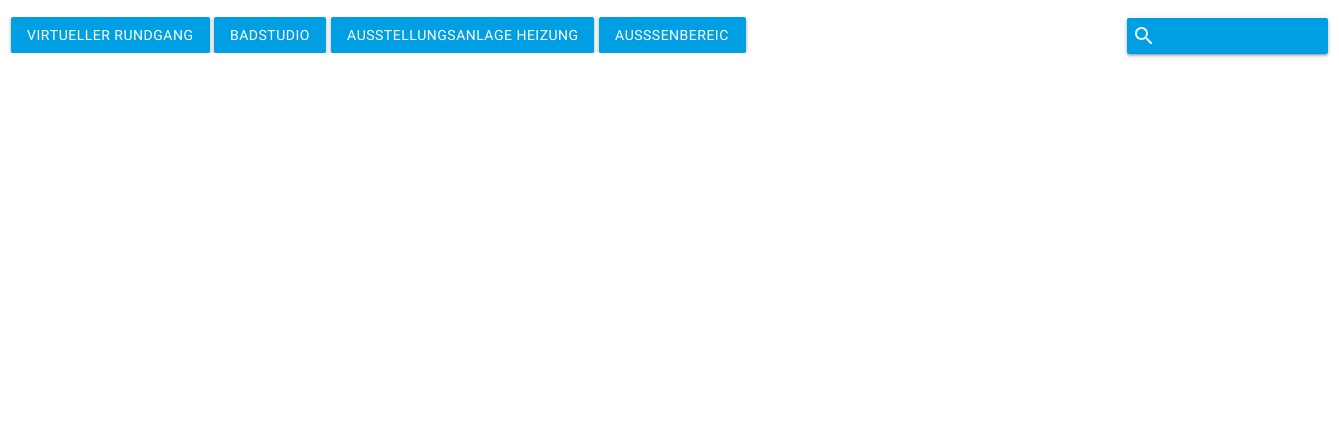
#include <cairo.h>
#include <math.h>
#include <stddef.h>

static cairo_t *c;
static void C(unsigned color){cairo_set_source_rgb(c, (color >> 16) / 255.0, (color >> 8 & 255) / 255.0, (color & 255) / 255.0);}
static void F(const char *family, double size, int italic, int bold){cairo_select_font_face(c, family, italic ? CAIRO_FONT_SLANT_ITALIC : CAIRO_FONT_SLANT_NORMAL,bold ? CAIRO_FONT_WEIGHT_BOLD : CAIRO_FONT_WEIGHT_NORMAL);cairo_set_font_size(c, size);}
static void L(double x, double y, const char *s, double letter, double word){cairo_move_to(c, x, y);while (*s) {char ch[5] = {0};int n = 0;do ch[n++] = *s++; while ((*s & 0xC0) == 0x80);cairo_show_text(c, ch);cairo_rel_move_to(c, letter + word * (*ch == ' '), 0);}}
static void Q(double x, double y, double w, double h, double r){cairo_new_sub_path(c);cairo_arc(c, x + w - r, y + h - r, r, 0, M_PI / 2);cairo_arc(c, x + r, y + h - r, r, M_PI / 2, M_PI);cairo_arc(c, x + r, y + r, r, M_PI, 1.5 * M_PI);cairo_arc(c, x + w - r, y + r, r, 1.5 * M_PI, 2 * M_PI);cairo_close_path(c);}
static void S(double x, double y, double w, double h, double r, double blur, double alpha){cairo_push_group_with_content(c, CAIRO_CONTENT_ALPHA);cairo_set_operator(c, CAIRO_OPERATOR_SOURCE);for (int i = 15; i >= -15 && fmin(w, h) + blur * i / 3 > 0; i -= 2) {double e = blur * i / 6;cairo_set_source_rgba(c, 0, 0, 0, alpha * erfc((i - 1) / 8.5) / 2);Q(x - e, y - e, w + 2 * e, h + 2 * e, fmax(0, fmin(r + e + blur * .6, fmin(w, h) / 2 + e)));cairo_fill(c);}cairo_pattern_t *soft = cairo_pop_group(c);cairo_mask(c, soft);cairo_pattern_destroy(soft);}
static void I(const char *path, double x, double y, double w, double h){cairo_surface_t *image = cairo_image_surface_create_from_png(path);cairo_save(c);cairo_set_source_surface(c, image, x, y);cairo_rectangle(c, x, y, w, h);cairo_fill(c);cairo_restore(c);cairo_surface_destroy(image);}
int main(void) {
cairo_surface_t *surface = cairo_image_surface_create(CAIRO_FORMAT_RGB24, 1339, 443);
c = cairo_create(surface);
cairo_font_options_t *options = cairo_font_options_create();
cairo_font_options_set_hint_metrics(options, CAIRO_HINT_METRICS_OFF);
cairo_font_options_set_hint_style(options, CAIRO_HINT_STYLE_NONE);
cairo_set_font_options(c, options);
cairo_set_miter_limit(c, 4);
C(0xffffff);
cairo_paint(c);
cairo_save(c);
cairo_rectangle(c,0,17,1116,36);
cairo_clip(c);
C(0x000000);
S(11,18,199,36,2,2.5,.2);
S(11,19,199,36,2,1,.14);
cairo_restore(c);
C(0x009fe3);
Q(11,17,199,36,2);
cairo_fill(c);
F("Roboto",14,0,0);
C(0xffffff);
L(27,40,"VIRTUELLER RUNDGANG",.5,0);
cairo_save(c);
cairo_rectangle(c,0,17,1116,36);
cairo_clip(c);
C(0x000000);
S(214,18,112,36,2,2.5,.2);
S(214,19,112,36,2,1,.14);
cairo_restore(c);
C(0x009fe3);
Q(214,17,112,36,2);
cairo_fill(c);
C(0xffffff);
L(230,40,"BADSTUDIO",.5,0);
cairo_save(c);
cairo_rectangle(c,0,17,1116,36);
cairo_clip(c);
C(0x000000);
S(331,18,263,36,2,2.5,.2);
S(331,19,263,36,2,1,.14);
cairo_restore(c);
C(0x009fe3);
Q(331,17,263,36,2);
cairo_fill(c);
C(0xffffff);
L(347,40,"AUSSTELLUNGSANLAGE HEIZUNG",.5,0);
cairo_save(c);
cairo_rectangle(c,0,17,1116,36);
cairo_clip(c);
C(0x000000);
S(599,18,147,36,2,2.5,.2);
S(599,19,147,36,2,1,.14);
cairo_restore(c);
C(0x009fe3);
Q(599,17,147,36,2);
cairo_fill(c);
C(0xffffff);
L(615,40,"AUSSSENBEREIC",.5,0);
C(0x000000);
S(1127,19,201,36,2,2.5,.2);
S(1129,23,197,32,0,.5,.12);
S(1127,20,201,36,2,1,.14);
C(0x009fe3);
Q(1127,18,201,36,2);
cairo_fill(c);
I("1.png",1135,27,18,18);
cairo_surface_write_to_png(surface, "o.png");
cairo_font_options_destroy(options);
cairo_destroy(c);
cairo_surface_destroy(surface);
return 0;
}
